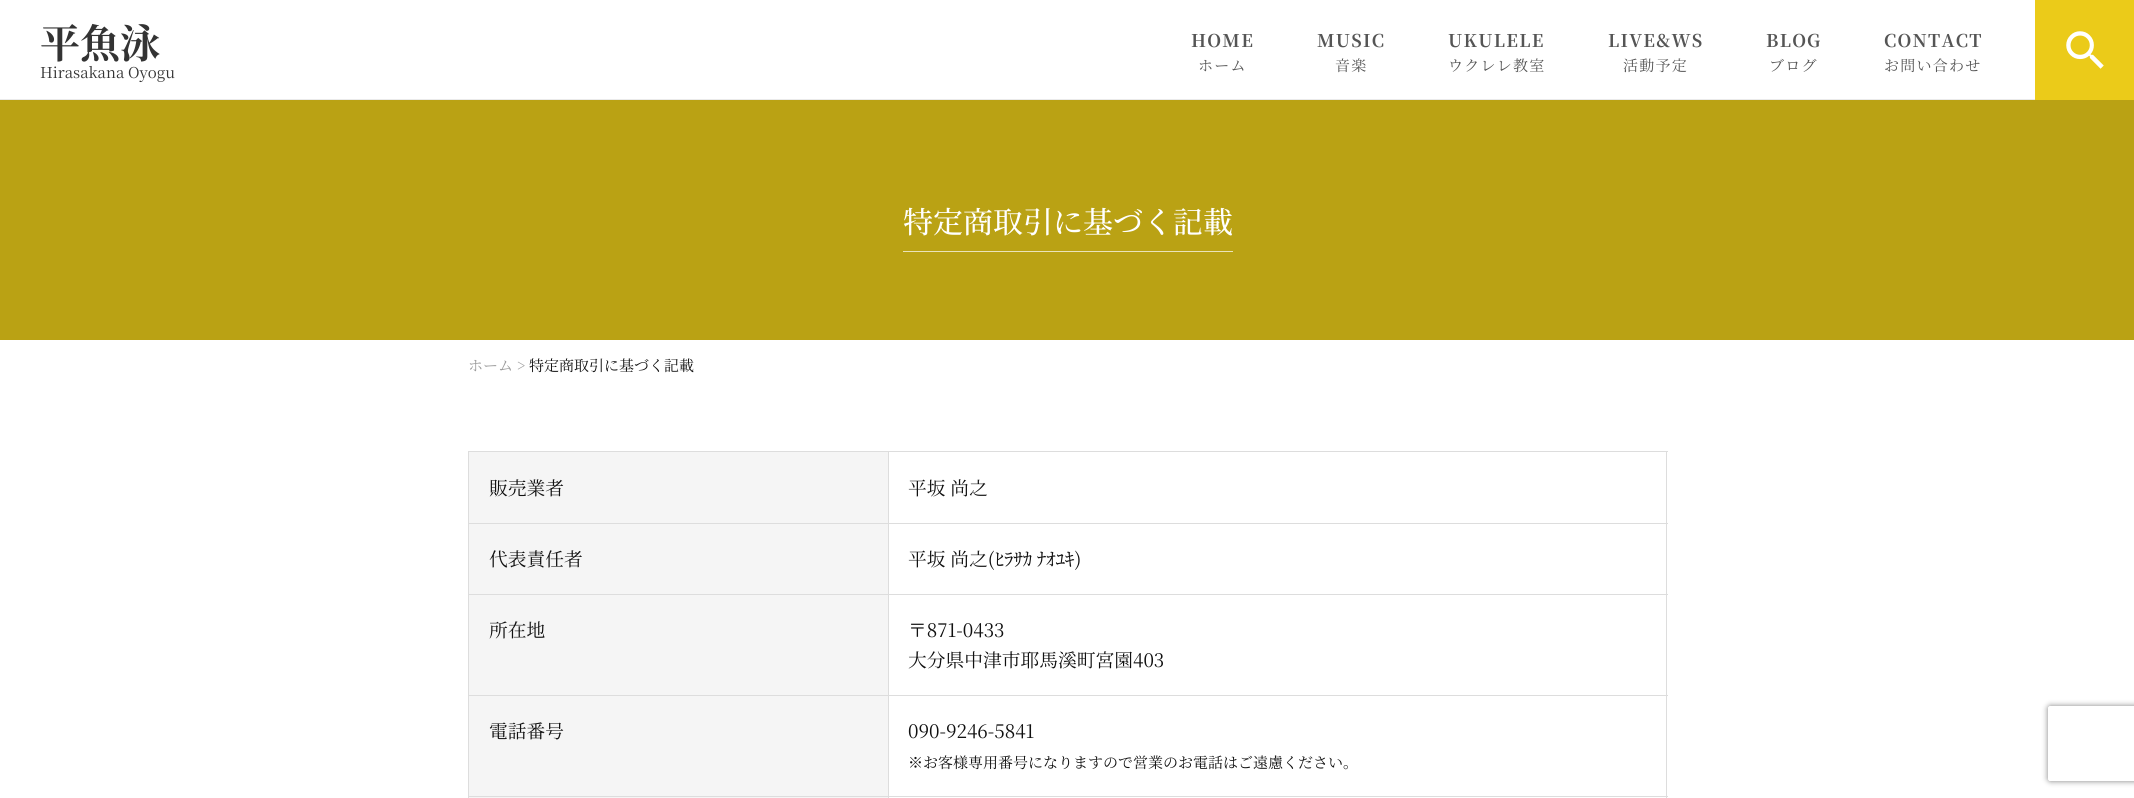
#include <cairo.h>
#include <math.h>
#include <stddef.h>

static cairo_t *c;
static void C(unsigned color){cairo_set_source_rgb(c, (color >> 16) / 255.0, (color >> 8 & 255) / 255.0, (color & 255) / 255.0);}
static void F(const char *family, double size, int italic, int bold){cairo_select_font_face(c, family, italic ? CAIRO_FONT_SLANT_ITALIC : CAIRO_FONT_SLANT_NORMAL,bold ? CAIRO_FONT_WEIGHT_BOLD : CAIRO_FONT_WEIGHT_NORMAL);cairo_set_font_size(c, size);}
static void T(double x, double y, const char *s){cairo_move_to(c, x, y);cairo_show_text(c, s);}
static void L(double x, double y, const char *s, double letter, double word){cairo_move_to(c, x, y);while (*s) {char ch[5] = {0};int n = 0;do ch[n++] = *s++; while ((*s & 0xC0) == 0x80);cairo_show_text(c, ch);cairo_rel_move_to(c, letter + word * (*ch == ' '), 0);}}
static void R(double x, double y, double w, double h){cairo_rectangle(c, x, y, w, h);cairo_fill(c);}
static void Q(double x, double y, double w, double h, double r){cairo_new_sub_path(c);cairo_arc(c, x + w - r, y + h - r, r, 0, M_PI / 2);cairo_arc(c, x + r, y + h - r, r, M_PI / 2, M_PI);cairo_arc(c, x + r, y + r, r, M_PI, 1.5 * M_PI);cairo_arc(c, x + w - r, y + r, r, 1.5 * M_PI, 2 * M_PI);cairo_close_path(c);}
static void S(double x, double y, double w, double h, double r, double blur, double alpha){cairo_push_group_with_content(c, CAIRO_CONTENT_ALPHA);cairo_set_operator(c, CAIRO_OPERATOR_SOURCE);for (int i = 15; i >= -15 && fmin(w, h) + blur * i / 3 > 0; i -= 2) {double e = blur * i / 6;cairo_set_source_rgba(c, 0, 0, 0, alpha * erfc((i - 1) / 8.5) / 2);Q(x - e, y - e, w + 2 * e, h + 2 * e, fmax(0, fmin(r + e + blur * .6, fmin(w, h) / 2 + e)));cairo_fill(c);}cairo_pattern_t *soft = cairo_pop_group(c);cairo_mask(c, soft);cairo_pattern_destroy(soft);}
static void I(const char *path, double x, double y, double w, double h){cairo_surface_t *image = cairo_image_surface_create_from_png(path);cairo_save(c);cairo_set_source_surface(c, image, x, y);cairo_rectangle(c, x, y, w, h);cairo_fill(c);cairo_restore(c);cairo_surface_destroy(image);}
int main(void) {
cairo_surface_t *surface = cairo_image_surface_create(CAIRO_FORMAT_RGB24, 2134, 798);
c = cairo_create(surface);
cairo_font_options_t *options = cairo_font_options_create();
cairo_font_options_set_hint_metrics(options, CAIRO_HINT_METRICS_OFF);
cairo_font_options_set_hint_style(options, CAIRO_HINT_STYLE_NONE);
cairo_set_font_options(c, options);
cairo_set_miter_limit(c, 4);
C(0xffffff);
cairo_paint(c);
C(0xeaeaea);
R(0,99,2035,1);
F("Noto Serif JP",40,0,1);
C(0x333333);
T(40,58,"平魚泳");
F("Noto Serif JP",15,0,0);
T(40,78,"Hirasakana Oyogu");
F("Noto Serif JP",17.5,0,1);
C(0x555555);
L(1191,47,"HOME",1.25,0);
F("Noto Serif JP",15,0,0);
L(1198,71,"ホーム",1.25,0);
F("Noto Serif JP",17.5,0,1);
L(1317,47,"MUSIC",1.25,0);
F("Noto Serif JP",15,0,0);
L(1335,71,"音楽",1.25,0);
F("Noto Serif JP",17.5,0,1);
L(1448,47,"UKULELE",1.25,0);
F("Noto Serif JP",15,0,0);
L(1448,71,"ウクレレ教室",1.25,0);
F("Noto Serif JP",17.5,0,1);
L(1608,47,"LIVE&WS",1.25,0);
F("Noto Serif JP",15,0,0);
L(1623,71,"活動予定",1.25,0);
F("Noto Serif JP",17.5,0,1);
L(1766,47,"BLOG",1.25,0);
F("Noto Serif JP",15,0,0);
L(1769,71,"ブログ",1.25,0);
F("Noto Serif JP",17.5,0,1);
L(1884,47,"CONTACT",1.25,0);
F("Noto Serif JP",15,0,0);
L(1884,71,"お問い合わせ",1.25,0);
C(0xebcb19);
R(2035,0,99,100);
I("1.png",2066,31,38,38);
C(0xbaa214);
R(0,100,2134,240);
F("Noto Serif JP Medium",30,0,0);
C(0xffffff);
T(903,233,"特定商取引に基づく記載");
C(0xeae3b9);
R(903,251,330,1);
F("Noto Serif JP",15,0,0);
C(0x999999);
T(468,371,"ホーム >");
C(0x111111);
T(529,371,"特定商取引に基づく記載");
C(0xdddddd);
R(468,451,1200,1);
R(1666,451,1,347);
R(468,451,1,347);
C(0xf5f5f5);
R(469,452,419,71);
F("Noto Serif JP",18.75,0,0);
C(0x111111);
T(489,495,"販売業者");
C(0xdddddd);
R(888,523,780,1);
R(888,594,780,1);
R(888,695,780,1);
R(468,796,1200,1);
R(888,695,1,103);
R(468,695,421,1);
R(888,594,1,102);
R(468,594,421,1);
R(888,523,1,72);
R(468,523,421,1);
R(888,451,1,73);
C(0x111111);
T(908,495,"平坂 尚之");
C(0xf5f5f5);
R(469,524,419,70);
C(0x111111);
T(489,566,"代表責任者");
T(908,566,"平坂 尚之(ﾋﾗｻｶ ﾅｵﾕｷ)");
C(0xf5f5f5);
R(469,595,419,100);
C(0x111111);
T(489,637,"所在地");
T(908,637,"〒871-0433");
T(908,667,"大分県中津市耶馬溪町宮園403");
C(0xf5f5f5);
R(469,696,419,100);
C(0x111111);
T(489,738,"電話番号");
T(908,738,"090-9246-5841");
F("Noto Serif JP",15,0,0);
T(908,768,"※お客様専用番号になりますので営業のお電話はご遠慮ください。");
C(0xf5f5f5);
R(469,797,419,1);
cairo_save(c);
cairo_set_fill_rule(c,CAIRO_FILL_RULE_EVEN_ODD);
cairo_new_path(c);
cairo_move_to(c,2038,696);
cairo_line_to(c,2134,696);
cairo_line_to(c,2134,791);
cairo_line_to(c,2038,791);
cairo_close_path(c);
cairo_move_to(c,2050.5,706);
cairo_line_to(c,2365.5,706);
cairo_curve_to(c,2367,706,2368,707,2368,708.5);
cairo_line_to(c,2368,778.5);
cairo_curve_to(c,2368,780,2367,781,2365.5,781);
cairo_line_to(c,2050.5,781);
cairo_curve_to(c,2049,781,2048,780,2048,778.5);
cairo_line_to(c,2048,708.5);
cairo_curve_to(c,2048,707,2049,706,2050.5,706);
cairo_close_path(c);
cairo_clip(c);
C(0x808080);
S(2048,706,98,75,2.5,3,1);
cairo_restore(c);
cairo_surface_write_to_png(surface, "o.png");
cairo_font_options_destroy(options);
cairo_destroy(c);
cairo_surface_destroy(surface);
return 0;
}
